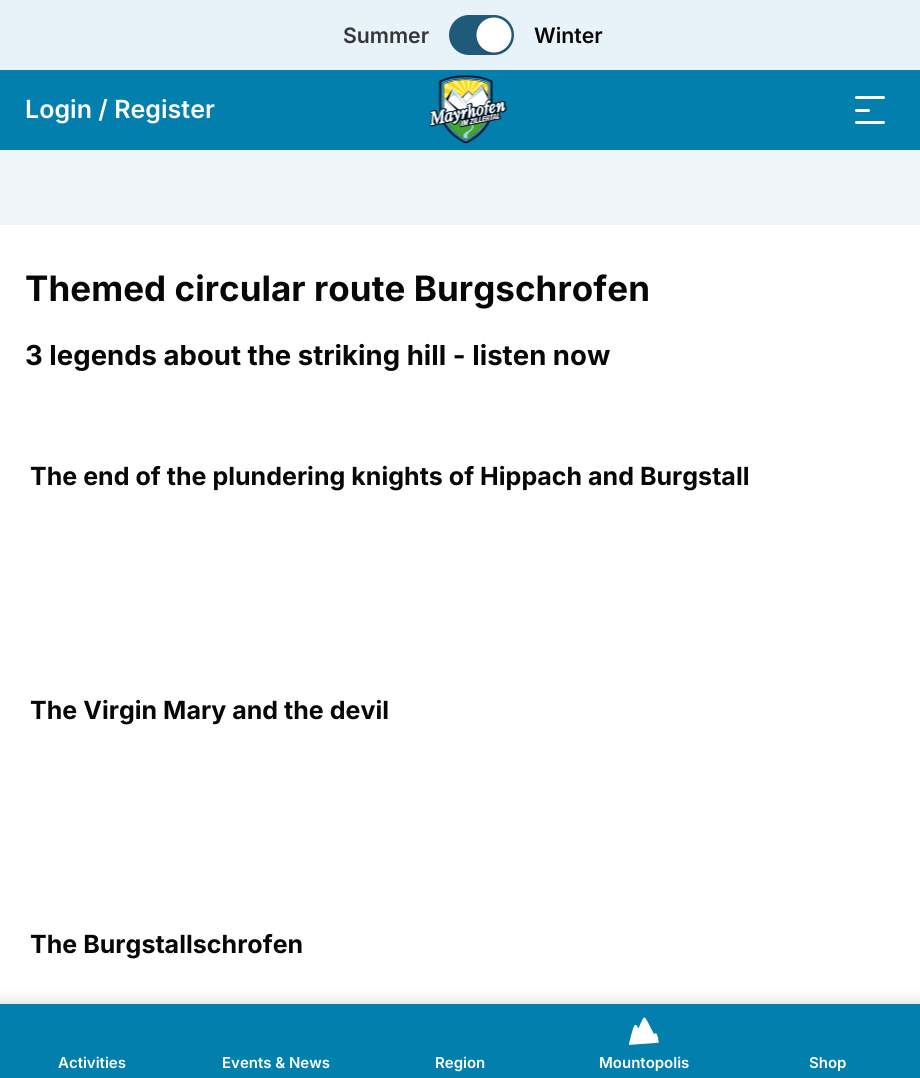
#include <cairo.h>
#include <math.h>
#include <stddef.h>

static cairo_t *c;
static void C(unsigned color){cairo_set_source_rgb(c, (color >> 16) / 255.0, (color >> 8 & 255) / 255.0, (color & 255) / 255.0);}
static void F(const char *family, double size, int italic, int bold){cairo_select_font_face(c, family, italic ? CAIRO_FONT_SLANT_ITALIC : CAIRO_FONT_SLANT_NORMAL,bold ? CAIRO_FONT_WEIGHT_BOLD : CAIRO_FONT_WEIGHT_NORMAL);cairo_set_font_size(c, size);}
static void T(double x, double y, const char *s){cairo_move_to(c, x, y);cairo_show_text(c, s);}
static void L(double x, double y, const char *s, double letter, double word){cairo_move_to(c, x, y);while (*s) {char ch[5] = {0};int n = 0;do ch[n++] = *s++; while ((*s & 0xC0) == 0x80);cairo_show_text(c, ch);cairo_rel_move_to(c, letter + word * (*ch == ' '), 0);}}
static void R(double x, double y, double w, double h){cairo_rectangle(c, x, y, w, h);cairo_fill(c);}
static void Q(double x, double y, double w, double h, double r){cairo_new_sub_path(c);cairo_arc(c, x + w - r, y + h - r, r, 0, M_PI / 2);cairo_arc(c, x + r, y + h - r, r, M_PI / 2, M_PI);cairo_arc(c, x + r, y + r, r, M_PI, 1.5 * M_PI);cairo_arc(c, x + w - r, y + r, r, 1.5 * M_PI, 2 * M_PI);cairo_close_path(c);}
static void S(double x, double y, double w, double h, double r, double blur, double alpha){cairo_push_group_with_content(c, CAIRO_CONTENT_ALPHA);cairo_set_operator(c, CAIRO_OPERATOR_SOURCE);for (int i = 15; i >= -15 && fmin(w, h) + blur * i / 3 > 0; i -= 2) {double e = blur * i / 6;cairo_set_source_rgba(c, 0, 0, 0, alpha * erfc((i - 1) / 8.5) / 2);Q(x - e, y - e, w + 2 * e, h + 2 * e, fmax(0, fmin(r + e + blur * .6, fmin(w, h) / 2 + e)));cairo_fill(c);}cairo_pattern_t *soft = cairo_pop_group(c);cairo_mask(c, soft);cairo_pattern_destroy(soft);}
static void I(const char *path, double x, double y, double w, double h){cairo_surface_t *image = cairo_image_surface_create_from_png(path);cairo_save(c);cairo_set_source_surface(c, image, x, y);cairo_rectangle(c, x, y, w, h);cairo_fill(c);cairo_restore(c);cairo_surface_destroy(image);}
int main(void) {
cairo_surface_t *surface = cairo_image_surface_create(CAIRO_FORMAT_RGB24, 920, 1078);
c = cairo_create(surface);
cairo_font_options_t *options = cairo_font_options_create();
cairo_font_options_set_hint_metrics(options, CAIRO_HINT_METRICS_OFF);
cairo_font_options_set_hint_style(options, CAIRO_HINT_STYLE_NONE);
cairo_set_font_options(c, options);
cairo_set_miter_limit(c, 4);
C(0xffffff);
cairo_paint(c);
C(0x027fac);
R(0,70,920,80);
C(0xe8f3f9);
R(0,0,920,70);
F("Inter SemiBold",21.25,0,0);
C(0x363537);
T(343,43,"Summer");
C(0x1f5a7a);
Q(449,15,65,40,20);
cairo_fill(c);
C(0x2c2c2c);
S(476,19,35,35,17.5,1,.2);
C(0xffffff);
cairo_new_path(c);
cairo_move_to(c,494,52.5);
cairo_curve_to(c,484,52.5,476.5,44.5,476.5,35);
cairo_curve_to(c,476.5,25.5,484,17.5,494,17.5);
cairo_curve_to(c,503.5,17.5,511.5,25.5,511.5,35);
cairo_curve_to(c,511.5,44.5,503.5,52.5,494,52.5);
cairo_close_path(c);
cairo_fill(c);
C(0x090606);
T(534,43,"Winter");
F("Inter SemiBold",25,0,0);
C(0xffffff);
L(25,118,"Login / Register",.03,0);
I("1.png",429,75,79,69);
Q(855,96,30,3,1.5);
cairo_fill(c);
Q(855,109,15,3,1.5);
cairo_fill(c);
Q(855,121,30,3,1.5);
cairo_fill(c);
C(0x000000);
S(-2,1005,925,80,0,9,.12);
S(-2,1011,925,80,0,10.5,.14);
C(0x027fac);
R(0,1004,920,74);
F("Inter SemiBold",15,0,0);
C(0xffffff);
T(58,1068,"Activities");
T(222,1068,"Events & News");
T(435,1068,"Region");
I("2.png",629,1017,30,28);
T(599,1068,"Mountopolis");
T(809,1068,"Shop");
C(0xf0f5fa);
R(0,150,920,75);
F("Inter",35,0,1);
C(0x090606);
L(25,301,"Themed circular route Burgschrofen",.05,0);
F("Inter",27.5,0,1);
L(25,365,"3 legends about the striking hill - listen now",.03,0);
F("Inter",25,0,1);
L(30,485,"The end of the plundering knights of Hippach and Burgstall",.03,0);
L(30,719,"The Virgin Mary and the devil",.03,0);
L(30,953,"The Burgstallschrofen",.03,0);
cairo_surface_write_to_png(surface, "o.png");
cairo_font_options_destroy(options);
cairo_destroy(c);
cairo_surface_destroy(surface);
return 0;
}
